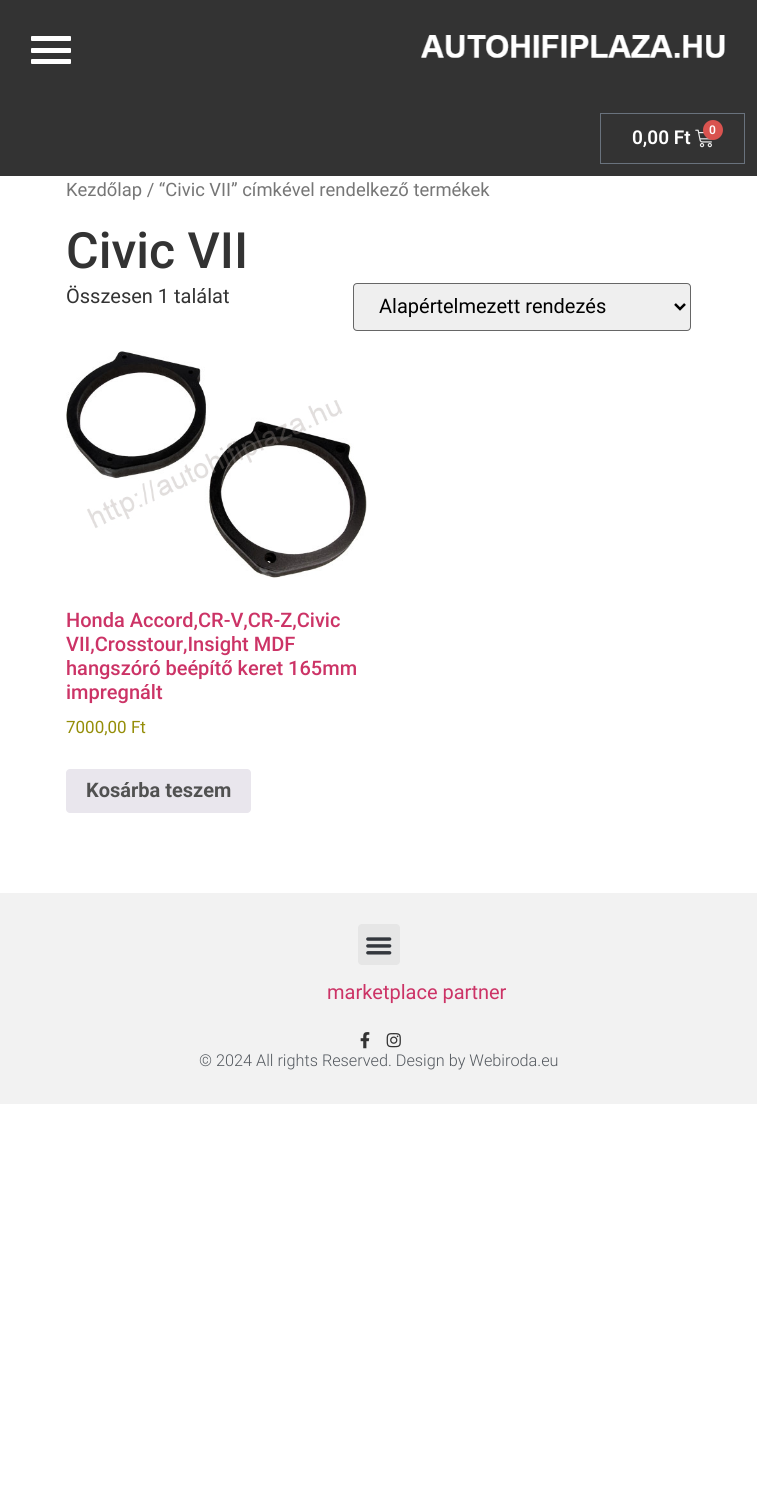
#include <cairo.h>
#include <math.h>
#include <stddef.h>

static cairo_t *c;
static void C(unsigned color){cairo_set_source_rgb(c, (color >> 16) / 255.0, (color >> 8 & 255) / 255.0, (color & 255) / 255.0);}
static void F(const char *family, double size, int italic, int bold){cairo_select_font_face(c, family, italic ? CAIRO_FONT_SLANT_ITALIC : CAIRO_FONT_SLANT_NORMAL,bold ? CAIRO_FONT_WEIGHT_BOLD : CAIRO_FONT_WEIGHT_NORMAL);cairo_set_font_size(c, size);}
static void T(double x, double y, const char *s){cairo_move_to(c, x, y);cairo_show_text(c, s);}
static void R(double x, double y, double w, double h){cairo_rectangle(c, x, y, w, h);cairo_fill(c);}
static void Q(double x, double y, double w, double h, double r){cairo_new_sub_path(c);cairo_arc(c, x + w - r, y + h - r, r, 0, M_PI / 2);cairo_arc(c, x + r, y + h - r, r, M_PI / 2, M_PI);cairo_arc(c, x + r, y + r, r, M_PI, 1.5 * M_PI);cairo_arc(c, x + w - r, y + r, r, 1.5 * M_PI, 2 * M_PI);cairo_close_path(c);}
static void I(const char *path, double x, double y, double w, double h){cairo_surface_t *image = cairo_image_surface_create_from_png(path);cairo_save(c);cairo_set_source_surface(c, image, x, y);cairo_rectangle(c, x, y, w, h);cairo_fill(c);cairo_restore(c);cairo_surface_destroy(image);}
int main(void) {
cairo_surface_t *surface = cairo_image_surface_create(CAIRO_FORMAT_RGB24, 757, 1511);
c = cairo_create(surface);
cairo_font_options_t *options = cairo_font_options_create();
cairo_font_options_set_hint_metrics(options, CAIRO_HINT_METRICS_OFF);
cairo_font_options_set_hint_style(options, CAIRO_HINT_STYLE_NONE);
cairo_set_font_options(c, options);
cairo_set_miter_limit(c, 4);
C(0xffffff);
cairo_paint(c);
C(0x333333);
R(0,0,757,176);
C(0xffffff);
Q(31,36,40,5,1);
cairo_fill(c);
Q(31,48,40,5,1);
cairo_fill(c);
Q(31,59,40,5,1);
cairo_fill(c);
I("1.png",421,35,304,23);
cairo_rectangle(c,600.5,113.5,144,50);
C(0x69727d);
cairo_set_line_width(c,1);
cairo_stroke(c);
F("Roboto SemiBold",19,0,0);
C(0xffffff);
T(632,144,"0,00 Ft");
I("2.png",695,129,17,19);
C(0xd9534f);
cairo_arc(c,713,130,10,0,2 * M_PI);
cairo_fill(c);
F("Roboto SemiBold",12,0,0);
C(0xffffff);
T(709,134,"0");
F("Roboto",18.4,0,0);
C(0x767676);
T(66,196,"Kezdőlap / “Civic VII” címkével rendelkező termékek");
F("Roboto Medium",50,0,0);
C(0x333333);
T(66,268,"Civic VII");
F("Roboto",20,0,0);
T(66,303,"Összesen 1 találat");
C(0xefefef);
Q(353.5,283.5,337,47,3.5);
cairo_fill_preserve(c);
C(0x666666);
cairo_stroke(c);
cairo_new_path(c);
cairo_move_to(c,675,304);
cairo_line_to(c,680,309);
cairo_line_to(c,685,304);
C(0x000000);
cairo_set_line_width(c,2.5);
cairo_stroke(c);
T(379,313,"Alapértelmezett rendezés");
I("3.png",66,351,301,227);
F("Roboto Medium",20,0,0);
C(0xcc3366);
T(66,627,"Honda Accord,CR-V,CR-Z,Civic");
T(66,651,"VII,Crosstour,Insight MDF");
T(66,675,"hangszóró beépítő keret 165mm");
T(66,699,"impregnált");
F("Roboto",17,0,0);
C(0x958e09);
T(66,733,"7000,00 Ft");
C(0xe9e6ed);
Q(66,769,185,44,4);
cairo_fill(c);
F("Roboto",20,0,1);
C(0x515151);
T(86,797,"Kosárba teszem");
C(0xf2f2f2);
R(0,893,757,211);
C(0xe6e6e6);
Q(358,924,42,41,4);
cairo_fill(c);
I("4.png",366,937,26,18);
F("Roboto",20,0,0);
C(0xcc3366);
T(327,999,"marketplace partner");
I("5.png",360,1032,10,17);
I("6.png",386,1033,15,15);
F("Roboto Light",16.25,0,0);
C(0x54595f);
T(199,1066,"© 2024 All rights Reserved. Design by Webiroda.eu");
cairo_surface_write_to_png(surface, "o.png");
cairo_font_options_destroy(options);
cairo_destroy(c);
cairo_surface_destroy(surface);
return 0;
}
